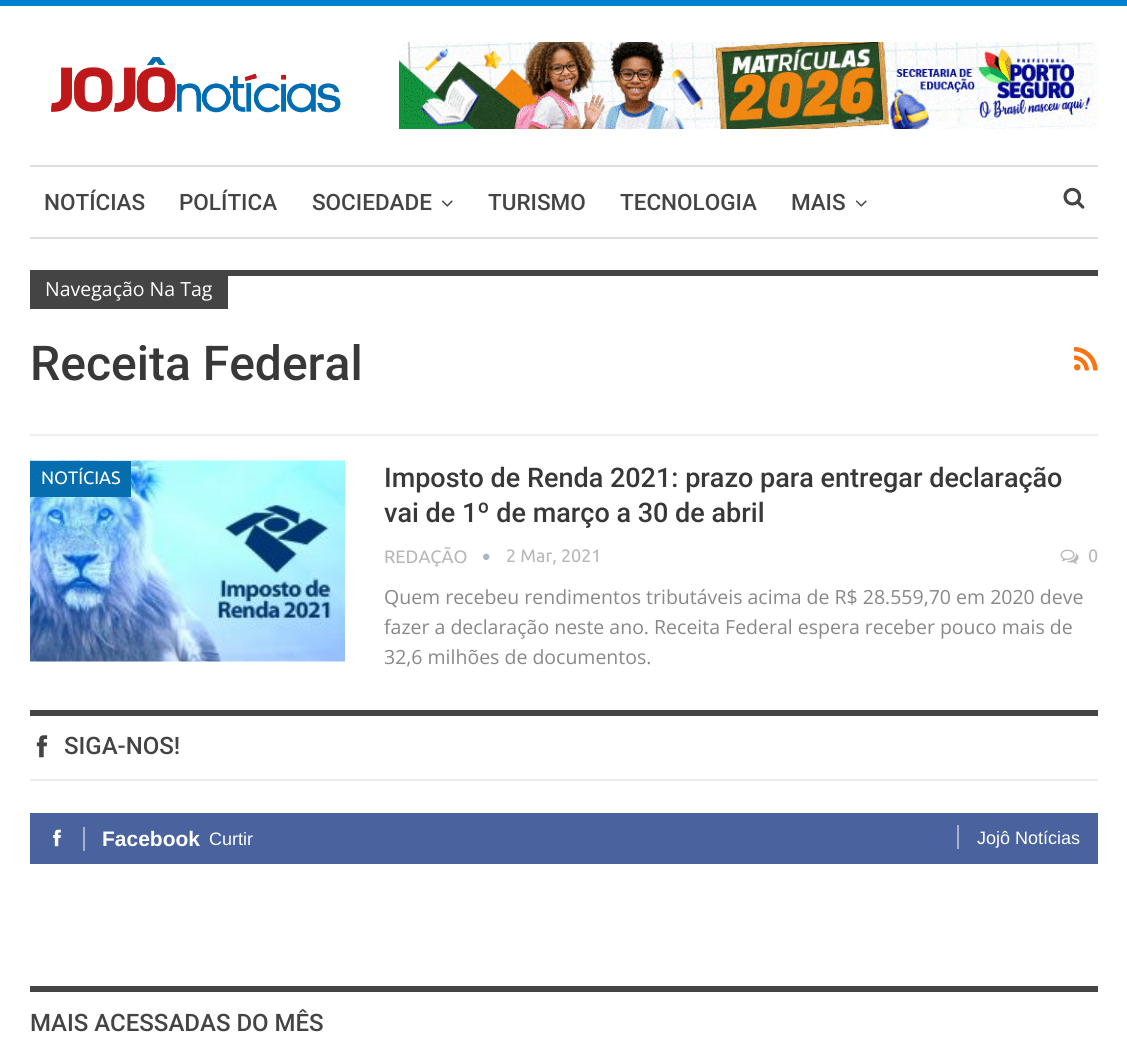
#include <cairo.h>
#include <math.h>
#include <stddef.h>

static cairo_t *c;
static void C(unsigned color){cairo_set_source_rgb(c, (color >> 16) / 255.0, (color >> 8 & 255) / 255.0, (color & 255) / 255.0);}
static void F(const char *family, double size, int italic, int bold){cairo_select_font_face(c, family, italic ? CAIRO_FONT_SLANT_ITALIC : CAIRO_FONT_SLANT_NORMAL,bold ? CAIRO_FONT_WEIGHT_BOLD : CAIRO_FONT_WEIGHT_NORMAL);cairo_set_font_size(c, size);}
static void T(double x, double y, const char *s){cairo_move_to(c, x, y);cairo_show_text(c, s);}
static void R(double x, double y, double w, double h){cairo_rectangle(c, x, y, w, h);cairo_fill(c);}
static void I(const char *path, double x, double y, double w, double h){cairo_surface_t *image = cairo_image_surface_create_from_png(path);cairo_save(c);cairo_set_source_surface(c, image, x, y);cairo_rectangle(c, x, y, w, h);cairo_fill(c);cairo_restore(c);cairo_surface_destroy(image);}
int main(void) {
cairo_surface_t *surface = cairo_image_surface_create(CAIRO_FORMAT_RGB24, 1127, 1049);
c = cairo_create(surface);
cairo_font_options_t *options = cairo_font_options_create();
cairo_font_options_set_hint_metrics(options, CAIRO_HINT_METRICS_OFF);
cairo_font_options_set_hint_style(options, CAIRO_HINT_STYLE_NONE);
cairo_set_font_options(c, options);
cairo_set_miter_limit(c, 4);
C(0xffffff);
cairo_paint(c);
C(0x0080ce);
R(0,0,1127,6);
I("1.png",51,57,290,56);
I("2.png",399,42,699,87);
C(0xdedede);
R(30,165,1068,2);
R(30,237,1068,2);
F("Roboto Medium",22.5,0,0);
C(0x444444);
T(44,210,"NOTÍCIAS");
T(179,210,"POLÍTICA");
T(312,210,"SOCIEDADE");
I("3.png",441,200,12,7);
T(488,210,"TURISMO");
T(620,210,"TECNOLOGIA");
T(791,210,"MAIS");
I("3.png",855,200,12,7);
I("4.png",1063,187,22,22);
C(0xf0f0f0);
R(30,434,1068,2);
C(0x444444);
R(228,270,870,6);
R(30,270,198,39);
F("Open Sans",19.5,0,0);
C(0xffffff);
T(45,296,"Navegação Na Tag");
F("Roboto Medium",48,0,0);
C(0x383838);
T(30,380,"Receita Federal");
I("5.png",1074,346,24,25);
I("6.png",30,460,315,202);
C(0x066dae);
R(30,461,101,36);
F("Ubuntu",18,0,0);
C(0xffffff);
T(41,484,"NOTÍCIAS");
F("Roboto Medium",27,0,0);
C(0x383838);
T(384,487,"Imposto de Renda 2021: prazo para entregar declaração");
T(384,522,"vai de 1º de março a 30 de abril");
F("Ubuntu",18,0,0);
C(0xb7b7b7);
T(384,563,"REDAÇÃO");
I("7.png",483,553,7,7);
T(506,562,"2 Mar, 2021");
I("8.png",1060,549,19,15);
T(1088,562,"0");
F("Open Sans",19.5,0,0);
C(0x888888);
T(384,604,"Quem recebeu rendimentos tributáveis acima de R$ 28.559,70 em 2020 deve");
T(384,634,"fazer a declaração neste ano. Receita Federal espera receber pouco mais de");
T(384,664,"32,6 milhões de documentos.");
C(0x444444);
R(30,710,1068,6);
I("9.png",36,735,12,23);
F("Roboto Medium",24,0,0);
T(64,754,"SIGA-NOS!");
C(0xededed);
R(30,779,1068,2);
C(0x4a639f);
R(30,813,1068,51);
I("10.png",53,829,8,18);
C(0xa5b1cf);
R(83,827,2,24);
F("Liberation Sans",21,0,1);
C(0xffffff);
T(102,846,"Facebook");
F("Liberation Sans",18,0,0);
T(209,845,"Curtir");
C(0xa5b1cf);
R(957,825,2,24);
C(0xffffff);
T(977,844,"Jojô Notícias");
C(0x444444);
R(30,986,1068,6);
F("Roboto Medium",24,0,0);
T(30,1031,"MAIS ACESSADAS DO MÊS");
cairo_surface_write_to_png(surface, "o.png");
cairo_font_options_destroy(options);
cairo_destroy(c);
cairo_surface_destroy(surface);
return 0;
}
